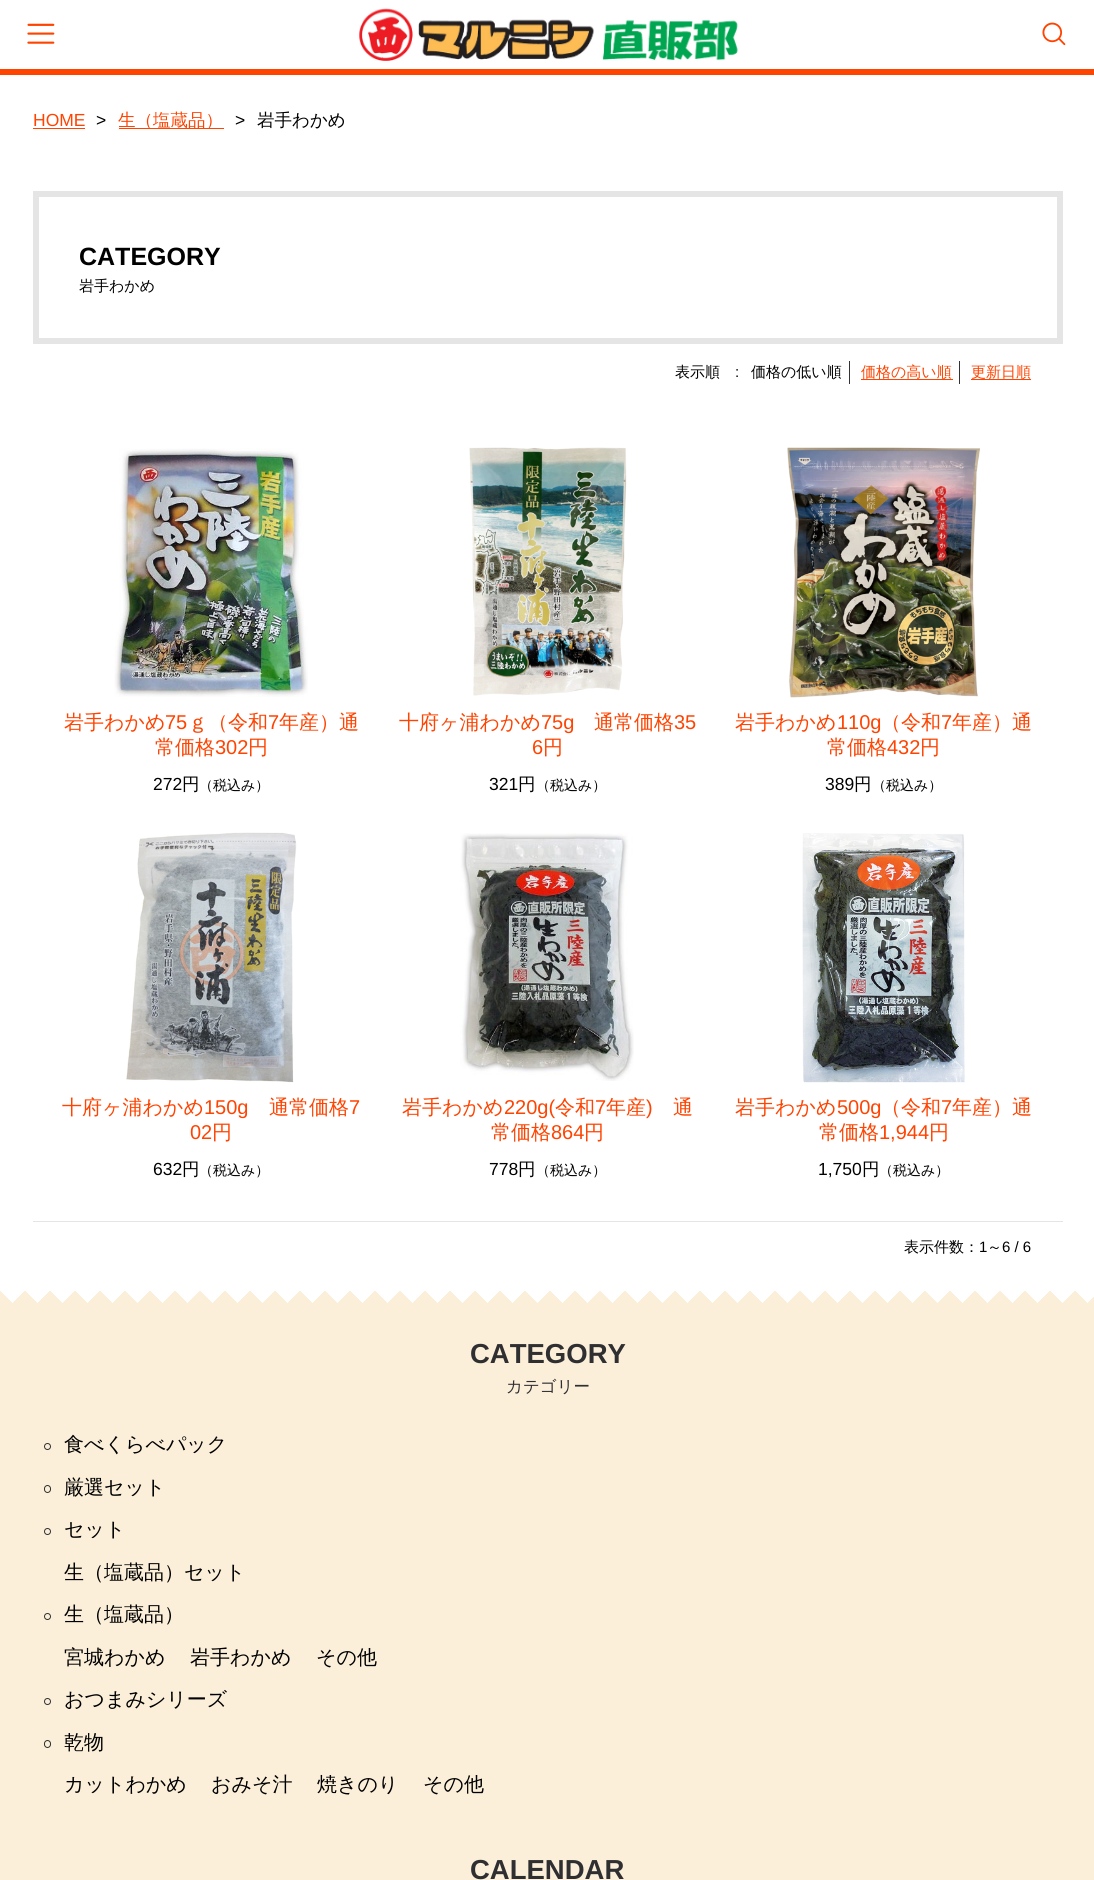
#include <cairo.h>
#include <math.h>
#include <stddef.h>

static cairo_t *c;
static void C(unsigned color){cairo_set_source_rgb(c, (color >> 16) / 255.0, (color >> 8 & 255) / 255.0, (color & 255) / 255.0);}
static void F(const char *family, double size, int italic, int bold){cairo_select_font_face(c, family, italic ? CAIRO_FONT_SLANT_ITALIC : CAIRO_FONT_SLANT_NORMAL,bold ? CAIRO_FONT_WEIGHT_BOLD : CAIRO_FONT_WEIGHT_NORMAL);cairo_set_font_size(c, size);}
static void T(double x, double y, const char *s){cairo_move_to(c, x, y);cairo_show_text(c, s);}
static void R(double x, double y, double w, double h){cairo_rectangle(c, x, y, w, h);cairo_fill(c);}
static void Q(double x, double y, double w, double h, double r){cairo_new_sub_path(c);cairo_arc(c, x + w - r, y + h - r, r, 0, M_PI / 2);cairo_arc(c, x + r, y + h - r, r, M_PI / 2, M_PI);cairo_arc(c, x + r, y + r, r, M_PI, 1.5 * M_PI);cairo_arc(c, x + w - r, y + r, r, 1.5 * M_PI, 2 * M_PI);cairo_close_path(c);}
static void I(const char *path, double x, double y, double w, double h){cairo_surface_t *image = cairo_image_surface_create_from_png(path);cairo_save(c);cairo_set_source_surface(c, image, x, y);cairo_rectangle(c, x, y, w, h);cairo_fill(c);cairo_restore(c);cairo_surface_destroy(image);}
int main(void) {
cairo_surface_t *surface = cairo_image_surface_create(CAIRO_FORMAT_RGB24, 1094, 1880);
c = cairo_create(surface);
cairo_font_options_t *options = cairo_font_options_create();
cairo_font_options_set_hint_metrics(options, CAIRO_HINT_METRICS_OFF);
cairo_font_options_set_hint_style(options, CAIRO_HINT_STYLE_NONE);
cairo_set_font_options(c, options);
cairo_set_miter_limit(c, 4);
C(0xffffff);
cairo_paint(c);
C(0xff4300);
R(0,69,1094,6);
I("1.png",27,23,28,21);
I("2.png",359,8,379,53);
I("3.png",1042,22,24,24);
F("Liberation Sans",17.5,0,0);
T(33,126,"HOME");
R(33,128,52,1);
C(0x000000);
T(96,126,">");
C(0xff4300);
R(119,128,105,1);
F("WenQuanYi Zen Hei Medium",17.5,0,0);
T(118,126,"生（塩蔵品）");
F("Liberation Sans",17.5,0,0);
C(0x000000);
T(235,126,">");
F("WenQuanYi Zen Hei Medium",17.5,0,0);
T(257,126,"岩手わかめ");
cairo_rectangle(c,36,194,1024,147);
C(0xe5e5e5);
cairo_set_line_width(c,6);
cairo_stroke(c);
F("Liberation Sans",25,0,1);
C(0x000000);
T(79,265,"CATEGORY");
F("WenQuanYi Zen Hei Medium",15,0,0);
T(79,291,"岩手わかめ");
T(675,377,"表示順");
F("Liberation Sans",15,0,0);
T(735,377,":");
C(0x333333);
R(849,361,1,23);
F("WenQuanYi Zen Hei Medium",15,0,0);
C(0x000000);
T(751,377,"価格の低い順");
C(0x333333);
R(959,361,1,23);
C(0xff4300);
R(861,379,92,1);
T(861,377,"価格の高い順");
R(971,379,60,1);
T(971,377,"更新日順");
I("4.png",114,448,194,249);
F("WenQuanYi Zen Hei Medium",20,0,0);
T(64,729,"岩手わかめ");
F("Liberation Sans",20,0,0);
T(165,729,"75");
F("WenQuanYi Zen Hei Medium",20,0,0);
T(188,729,"ｇ（令和");
F("Liberation Sans",20,0,0);
T(268,729,"7");
F("WenQuanYi Zen Hei Medium",20,0,0);
T(279,729,"年産）通");
T(155,754,"常価格");
F("Liberation Sans",20,0,0);
T(215,754,"302");
F("WenQuanYi Zen Hei Medium",20,0,0);
T(248,754,"円");
F("Liberation Sans",17.5,0,0);
C(0x000000);
T(153,790,"272");
F("WenQuanYi Zen Hei Medium",17.5,0,0);
T(182,790,"円");
F("WenQuanYi Zen Hei Medium",14,0,0);
T(199,790,"（税込み）");
I("5.png",469,447,158,249);
F("WenQuanYi Zen Hei Medium",20,0,0);
C(0xff4300);
T(399,729,"十府ヶ浦わかめ");
F("Liberation Sans",20,0,0);
T(541,729,"75g");
F("WenQuanYi Zen Hei Medium",20,0,0);
T(594,729,"通常価格");
F("Liberation Sans",20,0,0);
T(674,729,"35");
T(532,754,"6");
F("WenQuanYi Zen Hei Medium",20,0,0);
T(543,754,"円");
F("Liberation Sans",17.5,0,0);
C(0x000000);
T(489,790,"321");
F("WenQuanYi Zen Hei Medium",17.5,0,0);
T(518,790,"円");
F("WenQuanYi Zen Hei Medium",14,0,0);
T(536,790,"（税込み）");
I("6.png",787,447,193,251);
F("WenQuanYi Zen Hei Medium",20,0,0);
C(0xff4300);
T(735,729,"岩手わかめ");
F("Liberation Sans",20,0,0);
T(837,729,"110g");
F("WenQuanYi Zen Hei Medium",20,0,0);
T(881,729,"（令和");
F("Liberation Sans",20,0,0);
T(941,729,"7");
F("WenQuanYi Zen Hei Medium",20,0,0);
T(952,729,"年産）通");
T(827,754,"常価格");
F("Liberation Sans",20,0,0);
T(887,754,"432");
F("WenQuanYi Zen Hei Medium",20,0,0);
T(920,754,"円");
F("Liberation Sans",17.5,0,0);
C(0x000000);
T(825,790,"389");
F("WenQuanYi Zen Hei Medium",17.5,0,0);
T(854,790,"円");
F("WenQuanYi Zen Hei Medium",14,0,0);
T(872,790,"（税込み）");
I("7.png",126,832,171,251);
F("WenQuanYi Zen Hei Medium",20,0,0);
C(0xff4300);
T(62,1114,"十府ヶ浦わかめ");
F("Liberation Sans",20,0,0);
T(204,1114,"150g");
F("WenQuanYi Zen Hei Medium",20,0,0);
T(269,1114,"通常価格");
F("Liberation Sans",20,0,0);
T(349,1114,"7");
T(190,1139,"02");
F("WenQuanYi Zen Hei Medium",20,0,0);
T(212,1139,"円");
F("Liberation Sans",17.5,0,0);
C(0x000000);
T(153,1175,"632");
F("WenQuanYi Zen Hei Medium",17.5,0,0);
T(182,1175,"円");
F("WenQuanYi Zen Hei Medium",14,0,0);
T(199,1175,"（税込み）");
I("8.png",460,833,174,248);
F("WenQuanYi Zen Hei Medium",20,0,0);
C(0xff4300);
T(402,1114,"岩手わかめ");
F("Liberation Sans",20,0,0);
T(504,1114,"220g(");
F("WenQuanYi Zen Hei Medium",20,0,0);
T(555,1114,"令和");
F("Liberation Sans",20,0,0);
T(595,1114,"7");
F("WenQuanYi Zen Hei Medium",20,0,0);
T(606,1114,"年産");
F("Liberation Sans",20,0,0);
T(646,1114,")");
F("WenQuanYi Zen Hei Medium",20,0,0);
T(673,1114,"通");
T(491,1139,"常価格");
F("Liberation Sans",20,0,0);
T(551,1139,"864");
F("WenQuanYi Zen Hei Medium",20,0,0);
T(584,1139,"円");
F("Liberation Sans",17.5,0,0);
C(0x000000);
T(489,1175,"778");
F("WenQuanYi Zen Hei Medium",17.5,0,0);
T(518,1175,"円");
F("WenQuanYi Zen Hei Medium",14,0,0);
T(536,1175,"（税込み）");
I("9.png",802,833,163,250);
F("WenQuanYi Zen Hei Medium",20,0,0);
C(0xff4300);
T(735,1114,"岩手わかめ");
F("Liberation Sans",20,0,0);
T(837,1114,"500g");
F("WenQuanYi Zen Hei Medium",20,0,0);
T(881,1114,"（令和");
F("Liberation Sans",20,0,0);
T(941,1114,"7");
F("WenQuanYi Zen Hei Medium",20,0,0);
T(952,1114,"年産）通");
T(819,1139,"常価格");
F("Liberation Sans",20,0,0);
T(879,1139,"1,944");
F("WenQuanYi Zen Hei Medium",20,0,0);
T(929,1139,"円");
F("Liberation Sans",17.5,0,0);
C(0x000000);
T(818,1175,"1,750");
F("WenQuanYi Zen Hei Medium",17.5,0,0);
T(862,1175,"円");
F("WenQuanYi Zen Hei Medium",14,0,0);
T(879,1175,"（税込み）");
C(0xe5e5e5);
R(33,1221,1030,1);
F("WenQuanYi Zen Hei Medium",15,0,0);
C(0x000000);
T(904,1252,"表示件数：");
F("Liberation Sans",15,0,0);
T(979,1252,"1");
F("WenQuanYi Zen Hei Medium",15,0,0);
T(987,1252,"～");
F("Liberation Sans",15,0,0);
T(1002,1252,"6 / 6");
C(0xfbefd9);
R(0,1308,1094,572);
I("10.png",13,1291,1081,17);
I("11.png",0,1291,1087,17);
F("Liberation Sans",27.5,0,1);
C(0x2f2f32);
T(470,1363,"CATEGORY");
F("WenQuanYi Zen Hei Medium",16.5,0,0);
T(506,1392,"カテゴリー");
cairo_new_path(c);
cairo_arc(c,47.5,1446.5,3,0,2 * M_PI);
cairo_set_line_width(c,1);
cairo_stroke(c);
F("WenQuanYi Zen Hei Medium",20,0,0);
C(0x000000);
T(64,1451,"食べくらべパック");
Q(44.5,1485.5,6,7,3);
C(0x2f2f32);
cairo_stroke(c);
C(0x000000);
T(64,1494,"厳選セット");
cairo_new_path(c);
cairo_arc(c,47.5,1531.5,3,0,2 * M_PI);
C(0x2f2f32);
cairo_stroke(c);
C(0x000000);
T(64,1536,"セット");
T(64,1579,"生（塩蔵品）セット");
cairo_new_path(c);
cairo_arc(c,47.5,1616.5,3,0,2 * M_PI);
C(0x2f2f32);
cairo_stroke(c);
C(0x000000);
T(64,1621,"生（塩蔵品）");
T(64,1664,"宮城わかめ");
T(190,1664,"岩手わかめ");
T(316,1664,"その他");
cairo_new_path(c);
cairo_arc(c,47.5,1701.5,3,0,2 * M_PI);
C(0x2f2f32);
cairo_stroke(c);
C(0x000000);
T(64,1706,"おつまみシリーズ");
Q(44.5,1740.5,6,7,3);
C(0x2f2f32);
cairo_stroke(c);
C(0x000000);
T(64,1749,"乾物");
T(64,1791,"カットわかめ");
T(211,1791,"おみそ汁");
T(317,1791,"焼きのり");
T(423,1791,"その他");
F("Liberation Sans",27.5,0,1);
C(0x2f2f32);
T(470,1879,"CALENDAR");
cairo_surface_write_to_png(surface, "o.png");
cairo_font_options_destroy(options);
cairo_destroy(c);
cairo_surface_destroy(surface);
return 0;
}
